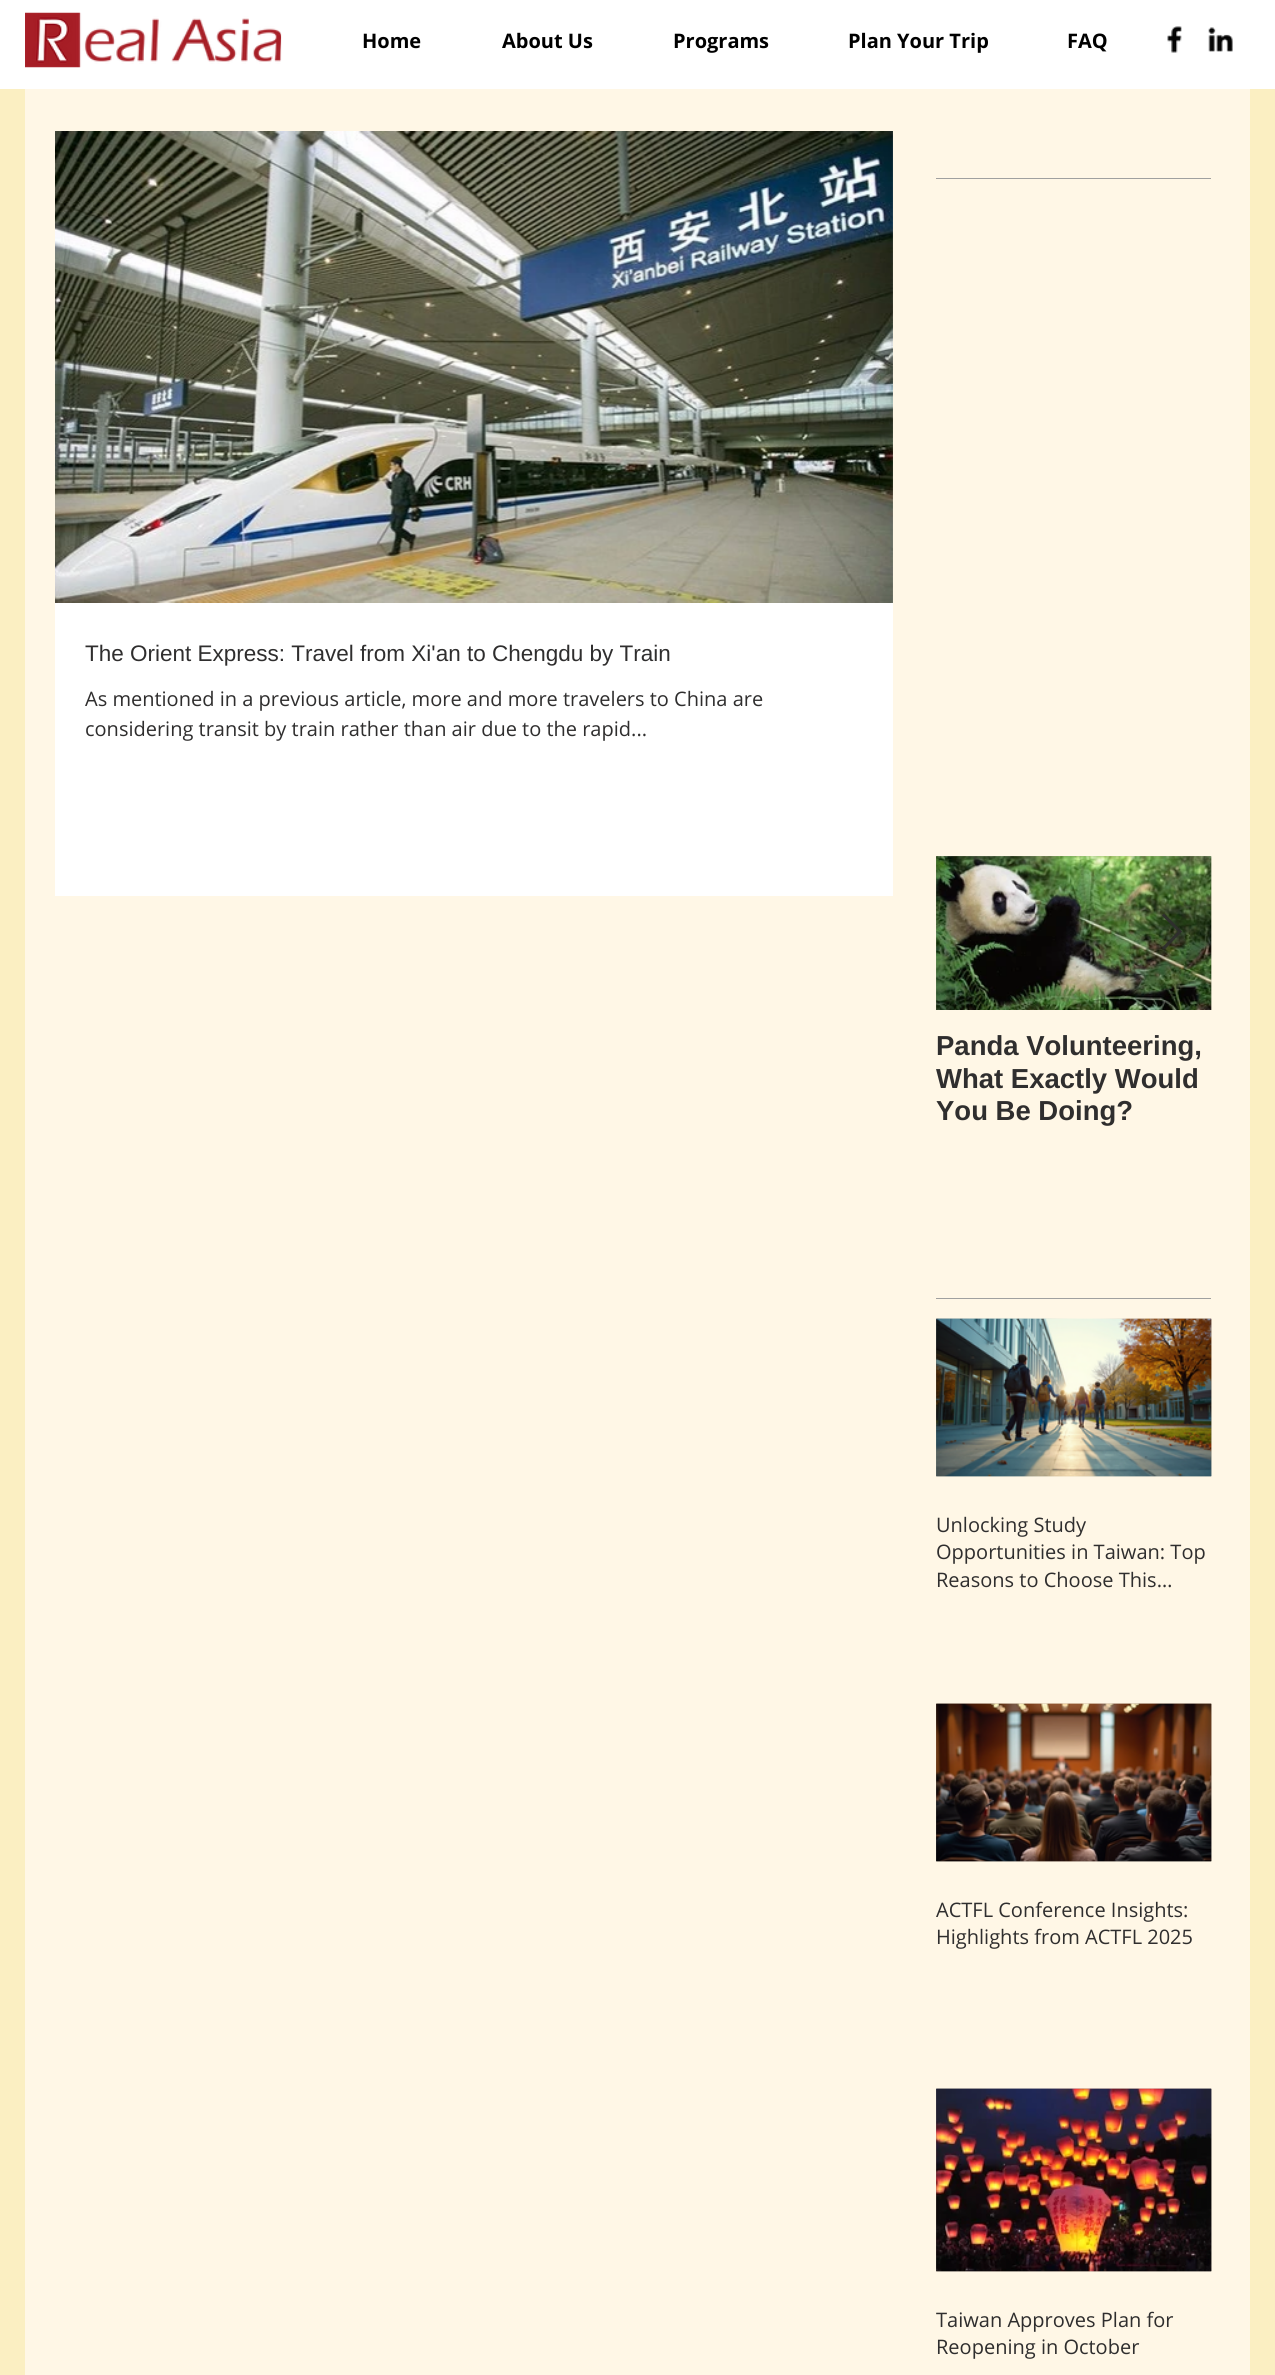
#include <cairo.h>
#include <math.h>
#include <stddef.h>

static cairo_t *c;
static void C(unsigned color){cairo_set_source_rgb(c, (color >> 16) / 255.0, (color >> 8 & 255) / 255.0, (color & 255) / 255.0);}
static void F(const char *family, double size, int italic, int bold){cairo_select_font_face(c, family, italic ? CAIRO_FONT_SLANT_ITALIC : CAIRO_FONT_SLANT_NORMAL,bold ? CAIRO_FONT_WEIGHT_BOLD : CAIRO_FONT_WEIGHT_NORMAL);cairo_set_font_size(c, size);}
static void T(double x, double y, const char *s){cairo_move_to(c, x, y);cairo_show_text(c, s);}
static void R(double x, double y, double w, double h){cairo_rectangle(c, x, y, w, h);cairo_fill(c);}
static void I(const char *path, double x, double y, double w, double h){cairo_surface_t *image = cairo_image_surface_create_from_png(path);cairo_save(c);cairo_set_source_surface(c, image, x, y);cairo_rectangle(c, x, y, w, h);cairo_fill(c);cairo_restore(c);cairo_surface_destroy(image);}
int main(void) {
cairo_surface_t *surface = cairo_image_surface_create(CAIRO_FORMAT_RGB24, 1275, 2375);
c = cairo_create(surface);
cairo_font_options_t *options = cairo_font_options_create();
cairo_font_options_set_hint_metrics(options, CAIRO_HINT_METRICS_OFF);
cairo_font_options_set_hint_style(options, CAIRO_HINT_STYLE_NONE);
cairo_set_font_options(c, options);
cairo_set_miter_limit(c, 4);
C(0xfbefc2);
cairo_paint(c);
C(0xffffff);
R(0,0,1275,89);
I("1.png",25,12,257,56);
F("Open Sans",20,0,1);
C(0x000000);
T(362,48,"Home");
T(502,48,"About Us");
T(673,48,"Programs");
T(848,48,"Plan Your Trip");
T(1067,48,"FAQ");
I("2.png",1167,26,15,27);
I("3.png",1208,27,25,25);
C(0xfff7e6);
R(25,89,1225,2286);
C(0xa0a09f);
R(936,178,275,1);
C(0xffffff);
R(55,131,838,765);
I("5.png",891,131,2,472);
I("4.png",55,131,838,472);
F("Liberation Sans",22.5,0,0);
C(0x2f2e2e);
T(85,661,"The Orient Express: Travel from Xi'an to Chengdu by Train");
F("Open Sans",20,0,0);
T(85,706,"As mentioned in a previous article, more and more travelers to China are");
T(85,736,"considering transit by train rather than air due to the rapid...");
I("6.png",936,856,276,154);
I("7.png",936,856,276,154);
cairo_set_source_rgba(c,0.184,0.18,0.18,0.9);
cairo_new_path(c);
cairo_move_to(c,1162.5,915.5);
cairo_line_to(c,1164,914);
cairo_line_to(c,1181.5,931.5);
cairo_line_to(c,1164,949.5);
cairo_line_to(c,1162.5,948);
cairo_line_to(c,1178.5,931.5);
cairo_close_path(c);
cairo_fill_preserve(c);
cairo_set_line_width(c,1);
cairo_stroke(c);
F("Liberation Sans",27.5,0,1);
C(0x2f2e2e);
T(936,1055,"Panda Volunteering,");
T(936,1088,"What Exactly Would");
T(936,1120,"You Be Doing?");
C(0xa0a09f);
R(936,1298,275,1);
I("8.png",936,1318,276,159);
I("9.png",936,1318,276,159);
F("Open Sans",20,0,0);
C(0x2f2e2e);
T(936,1532,"Unlocking Study");
T(936,1559,"Opportunities in Taiwan: Top");
T(936,1587,"Reasons to Choose This…");
I("10.png",936,1703,276,159);
I("11.png",936,1703,276,159);
T(936,1917,"ACTFL Conference Insights:");
T(936,1944,"Highlights from ACTFL 2025");
I("12.png",936,2088,276,184);
I("13.png",936,2088,276,184);
T(936,2327,"Taiwan Approves Plan for");
T(936,2354,"Reopening in October");
cairo_surface_write_to_png(surface, "o.png");
cairo_font_options_destroy(options);
cairo_destroy(c);
cairo_surface_destroy(surface);
return 0;
}
